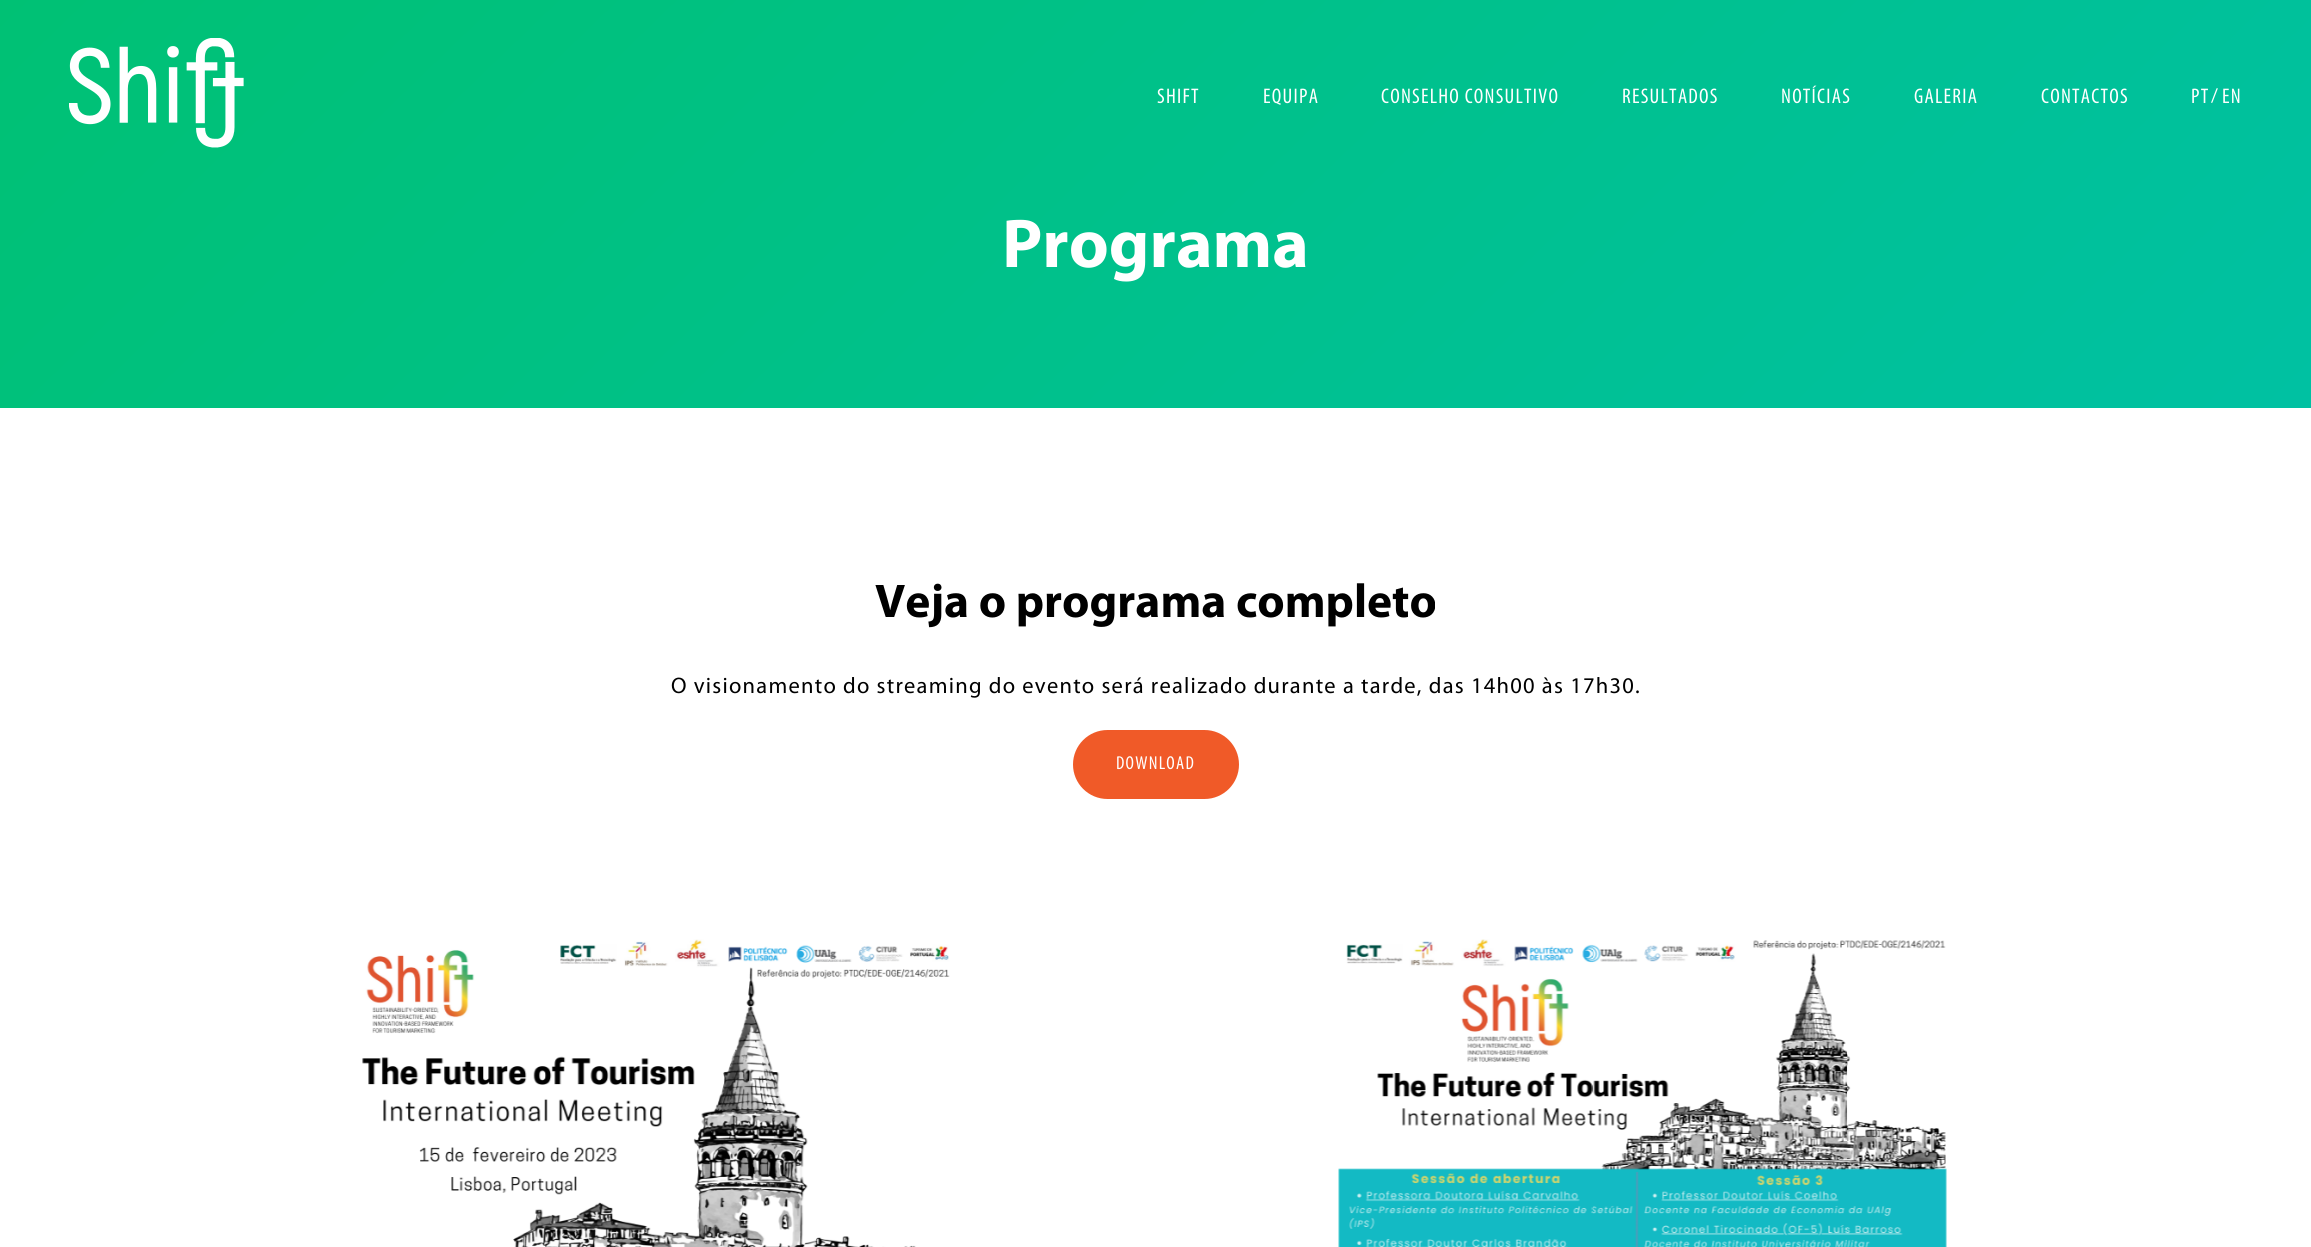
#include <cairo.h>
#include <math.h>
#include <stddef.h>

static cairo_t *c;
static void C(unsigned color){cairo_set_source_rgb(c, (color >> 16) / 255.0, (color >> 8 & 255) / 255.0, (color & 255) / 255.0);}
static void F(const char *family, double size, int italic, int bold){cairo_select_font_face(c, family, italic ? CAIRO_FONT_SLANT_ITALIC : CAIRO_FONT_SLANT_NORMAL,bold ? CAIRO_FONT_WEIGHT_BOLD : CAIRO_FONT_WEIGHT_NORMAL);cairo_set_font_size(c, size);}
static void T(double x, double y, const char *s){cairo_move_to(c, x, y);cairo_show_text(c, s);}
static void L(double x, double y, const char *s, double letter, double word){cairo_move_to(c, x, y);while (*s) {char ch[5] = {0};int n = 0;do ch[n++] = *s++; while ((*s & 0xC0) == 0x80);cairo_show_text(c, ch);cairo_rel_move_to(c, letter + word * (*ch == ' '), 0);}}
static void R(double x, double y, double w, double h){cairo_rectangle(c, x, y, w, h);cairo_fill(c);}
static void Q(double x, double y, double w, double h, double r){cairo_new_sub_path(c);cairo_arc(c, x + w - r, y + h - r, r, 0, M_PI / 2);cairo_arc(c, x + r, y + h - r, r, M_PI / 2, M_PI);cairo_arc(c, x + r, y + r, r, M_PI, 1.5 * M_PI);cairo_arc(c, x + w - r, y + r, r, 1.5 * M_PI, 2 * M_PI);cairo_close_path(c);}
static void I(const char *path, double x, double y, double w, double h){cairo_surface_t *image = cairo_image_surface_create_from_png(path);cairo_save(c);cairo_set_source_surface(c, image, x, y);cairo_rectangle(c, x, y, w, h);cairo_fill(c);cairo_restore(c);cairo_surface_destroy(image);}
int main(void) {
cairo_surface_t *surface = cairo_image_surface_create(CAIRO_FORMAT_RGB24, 2311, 1247);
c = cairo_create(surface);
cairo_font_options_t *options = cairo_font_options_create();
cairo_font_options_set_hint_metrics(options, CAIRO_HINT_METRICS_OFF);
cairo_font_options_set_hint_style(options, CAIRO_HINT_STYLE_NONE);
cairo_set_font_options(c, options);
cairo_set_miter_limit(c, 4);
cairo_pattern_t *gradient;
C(0xffffff);
cairo_paint(c);
gradient = cairo_pattern_create_linear(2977,-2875,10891,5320);
cairo_pattern_add_color_stop_rgba(gradient,0,0,0.757,0.455,1);
cairo_pattern_add_color_stop_rgba(gradient,.5,0,0.753,1,1);
cairo_pattern_add_color_stop_rgba(gradient,1,0.251,0.651,0,1);
cairo_set_source(c,gradient);
cairo_pattern_destroy(gradient);
R(0,0,2311,408);
I("1.png",69,38,175,110);
F("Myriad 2",21.25,0,0);
C(0xffffff);
L(1157,103,"SHIFT",1.25,0);
L(1263,103,"EQUIPA",1.25,0);
L(1381,103,"CONSELHO CONSULTIVO",1.25,0);
L(1622,103,"RESULTADOS",1.25,0);
L(1781,103,"NOTÍCIAS",1.25,0);
L(1914,103,"GALERIA",1.25,0);
L(2041,103,"CONTACTOS",1.25,0);
L(2191,103,"PT",1.25,0);
F("Myriad",20,0,0);
T(2211,102,"/");
F("Myriad 2",21.25,0,0);
L(2222,103,"EN",1.25,0);
F("Myriad",69.5,0,1);
T(1002,267,"Programa");
F("Myriad",47.5,0,1);
C(0x000000);
T(875,617,"Veja o programa completo");
F("Myriad",22.5,0,0);
L(671,693,"O visionamento do streaming do evento será realizado durante a tarde, das 14h00 às 17h30.",1.25,0);
C(0xf05a28);
Q(1073,730,166,69,34.5);
cairo_fill(c);
F("Myriad 2",18.75,0,0);
C(0xffffff);
L(1116,769,"DOWNLOAD",1.25,0);
I("2.png",362,939,588,308);
I("3.png",1338,939,609,308);
cairo_surface_write_to_png(surface, "o.png");
cairo_font_options_destroy(options);
cairo_destroy(c);
cairo_surface_destroy(surface);
return 0;
}
